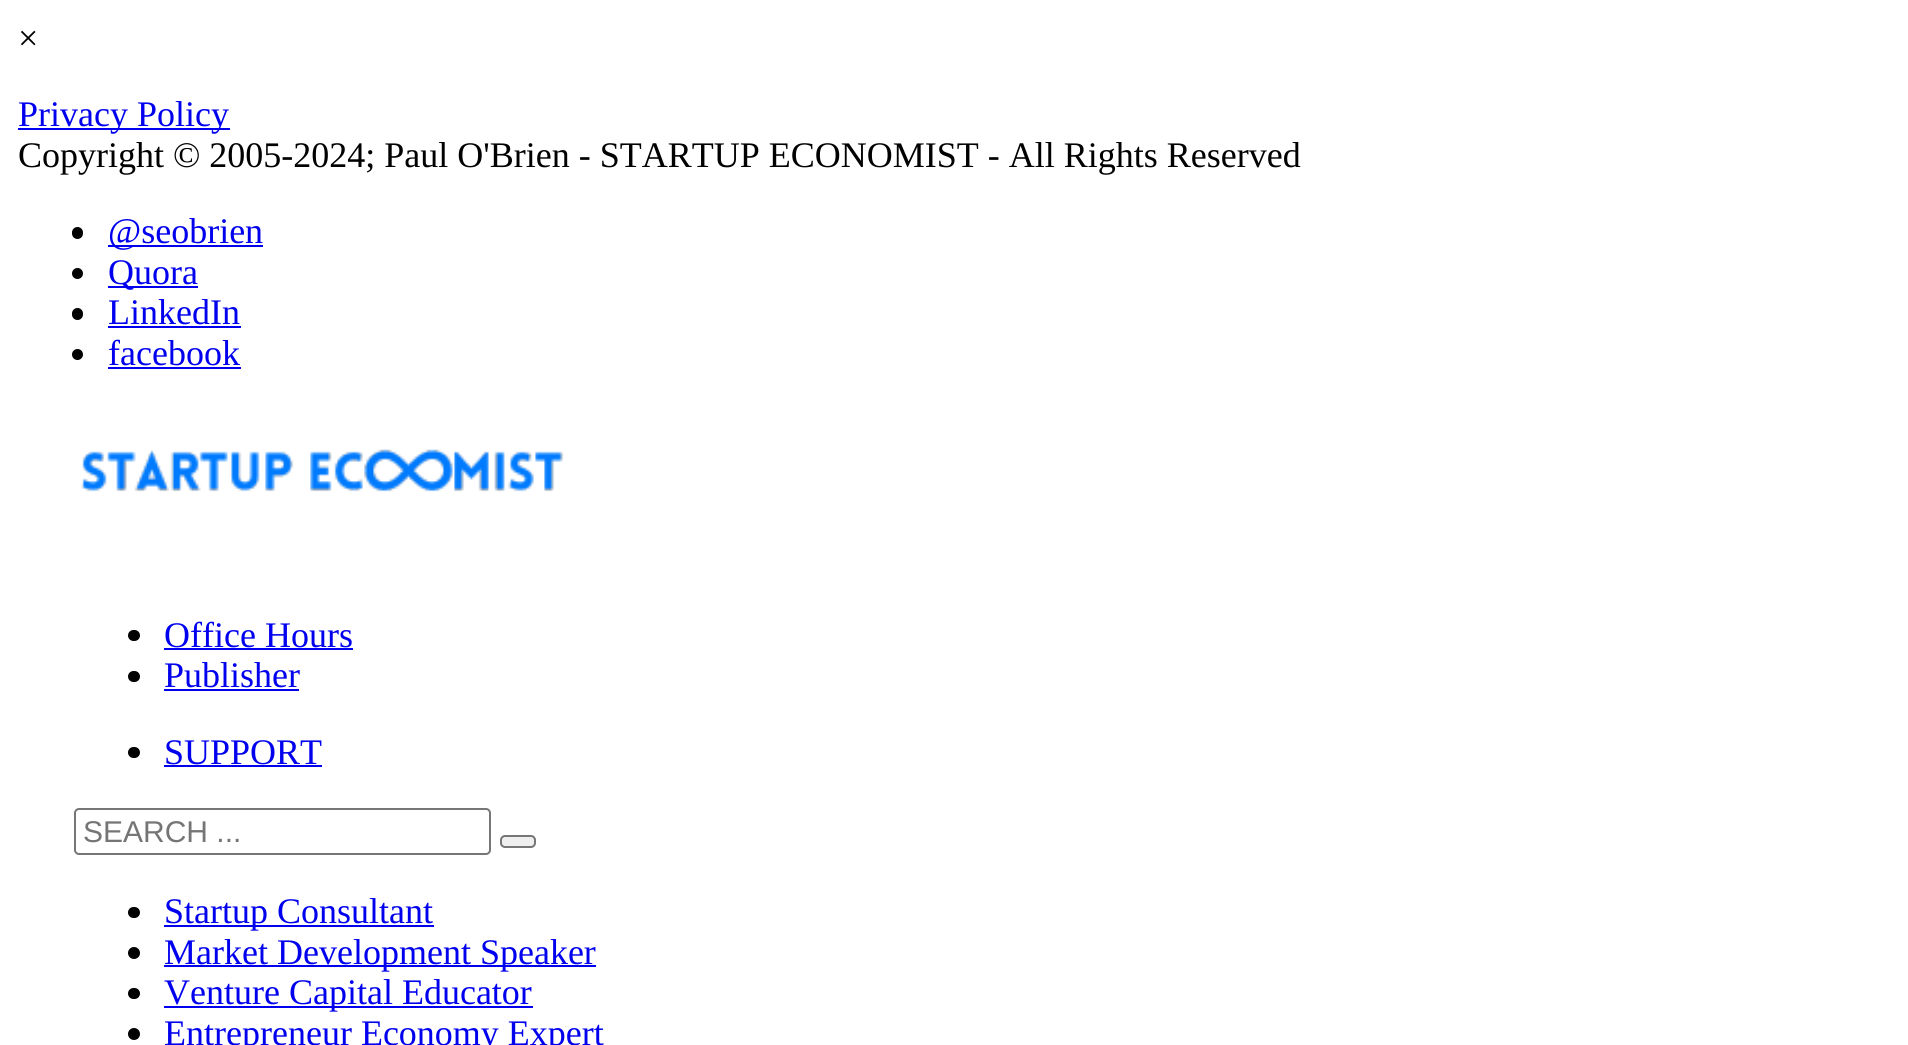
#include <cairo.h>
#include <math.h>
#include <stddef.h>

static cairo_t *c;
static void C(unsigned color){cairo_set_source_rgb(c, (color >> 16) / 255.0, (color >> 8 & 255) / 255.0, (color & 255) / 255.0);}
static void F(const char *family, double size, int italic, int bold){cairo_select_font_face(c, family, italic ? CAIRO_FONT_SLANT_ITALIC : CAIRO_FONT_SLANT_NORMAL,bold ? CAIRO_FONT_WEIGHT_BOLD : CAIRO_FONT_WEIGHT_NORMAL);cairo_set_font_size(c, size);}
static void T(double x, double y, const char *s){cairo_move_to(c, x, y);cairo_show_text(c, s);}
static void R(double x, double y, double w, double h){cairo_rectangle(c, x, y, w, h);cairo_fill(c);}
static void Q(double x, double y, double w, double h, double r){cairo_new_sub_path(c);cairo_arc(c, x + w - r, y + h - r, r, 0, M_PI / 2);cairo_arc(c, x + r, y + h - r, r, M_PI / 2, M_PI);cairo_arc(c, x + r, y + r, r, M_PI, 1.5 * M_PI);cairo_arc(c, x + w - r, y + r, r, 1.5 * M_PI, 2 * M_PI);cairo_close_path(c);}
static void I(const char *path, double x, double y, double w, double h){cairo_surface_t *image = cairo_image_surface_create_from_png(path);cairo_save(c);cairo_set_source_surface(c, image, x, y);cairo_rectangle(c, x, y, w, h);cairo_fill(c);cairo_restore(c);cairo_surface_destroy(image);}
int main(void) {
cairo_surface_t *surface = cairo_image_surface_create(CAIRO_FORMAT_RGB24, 1908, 1045);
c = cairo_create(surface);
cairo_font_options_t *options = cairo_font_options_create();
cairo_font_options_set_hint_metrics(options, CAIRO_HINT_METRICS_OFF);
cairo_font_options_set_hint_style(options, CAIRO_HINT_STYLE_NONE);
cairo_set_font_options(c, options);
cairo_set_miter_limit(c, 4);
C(0xffffff);
cairo_paint(c);
F("Liberation Serif",36,0,0);
C(0x000000);
T(18,50,"×");
C(0x0000ee);
R(18,128,212,2);
T(18,126,"Privacy Policy");
C(0x000000);
T(18,167,"Copyright © 2005-2024; Paul O'Brien - STARTUP ECONOMIST - All Rights Reserved");
Q(72,227,11,12,5.5);
cairo_fill(c);
C(0x0000ee);
R(108,245,155,2);
T(108,243,"@seobrien");
C(0x000000);
cairo_new_path(c);
cairo_arc(c,77.5,273.5,5.5,0,2 * M_PI);
cairo_fill(c);
C(0x0000ee);
R(108,286,90,2);
T(108,284,"Quora");
C(0x000000);
Q(72,308,11,12,5.5);
cairo_fill(c);
C(0x0000ee);
T(108,324,"LinkedIn");
R(108,326,133,2);
C(0x000000);
cairo_new_path(c);
cairo_arc(c,77.5,354.5,5.5,0,2 * M_PI);
cairo_fill(c);
C(0x0000ee);
T(108,365,"facebook");
R(108,367,133,2);
I("1.png",81,449,483,43);
C(0x000000);
Q(128,630,12,11,5.5);
cairo_fill(c);
C(0x0000ee);
T(164,647,"Office Hours");
R(164,648,189,2);
C(0x000000);
Q(128,671,12,11,5.5);
cairo_fill(c);
C(0x0000ee);
T(164,687,"Publisher");
R(164,689,135,2);
C(0x000000);
Q(128,747,12,11,5.5);
cairo_fill(c);
C(0x0000ee);
T(164,764,"SUPPORT");
R(164,765,158,2);
Q(75,809,415,45,4);
C(0x767676);
cairo_stroke(c);
F("Liberation Sans",30,0,0);
C(0x757575);
T(83,842,"SEARCH ...");
C(0xefefef);
Q(501,836,34,11,4);
cairo_fill_preserve(c);
C(0x767676);
cairo_stroke(c);
C(0x000000);
Q(128,907,12,11,5.5);
cairo_fill(c);
C(0x0000ee);
R(164,925,270,2);
F("Liberation Serif",36,0,0);
T(164,923,"Startup Consultant");
C(0x000000);
cairo_new_path(c);
cairo_arc(c,134,953,6,0,2 * M_PI);
cairo_fill(c);
C(0x0000ee);
R(164,965,432,2);
T(164,964,"Market Development Speaker");
C(0x000000);
Q(128,988,12,11,5.5);
cairo_fill(c);
C(0x0000ee);
R(164,1006,369,2);
T(164,1004,"Venture Capital Educator");
C(0x000000);
cairo_new_path(c);
cairo_arc(c,134,1034,6,0,2 * M_PI);
cairo_fill(c);
C(0x0000ee);
T(164,1045,"Entrepreneur Economy Expert");
cairo_surface_write_to_png(surface, "o.png");
cairo_font_options_destroy(options);
cairo_destroy(c);
cairo_surface_destroy(surface);
return 0;
}
